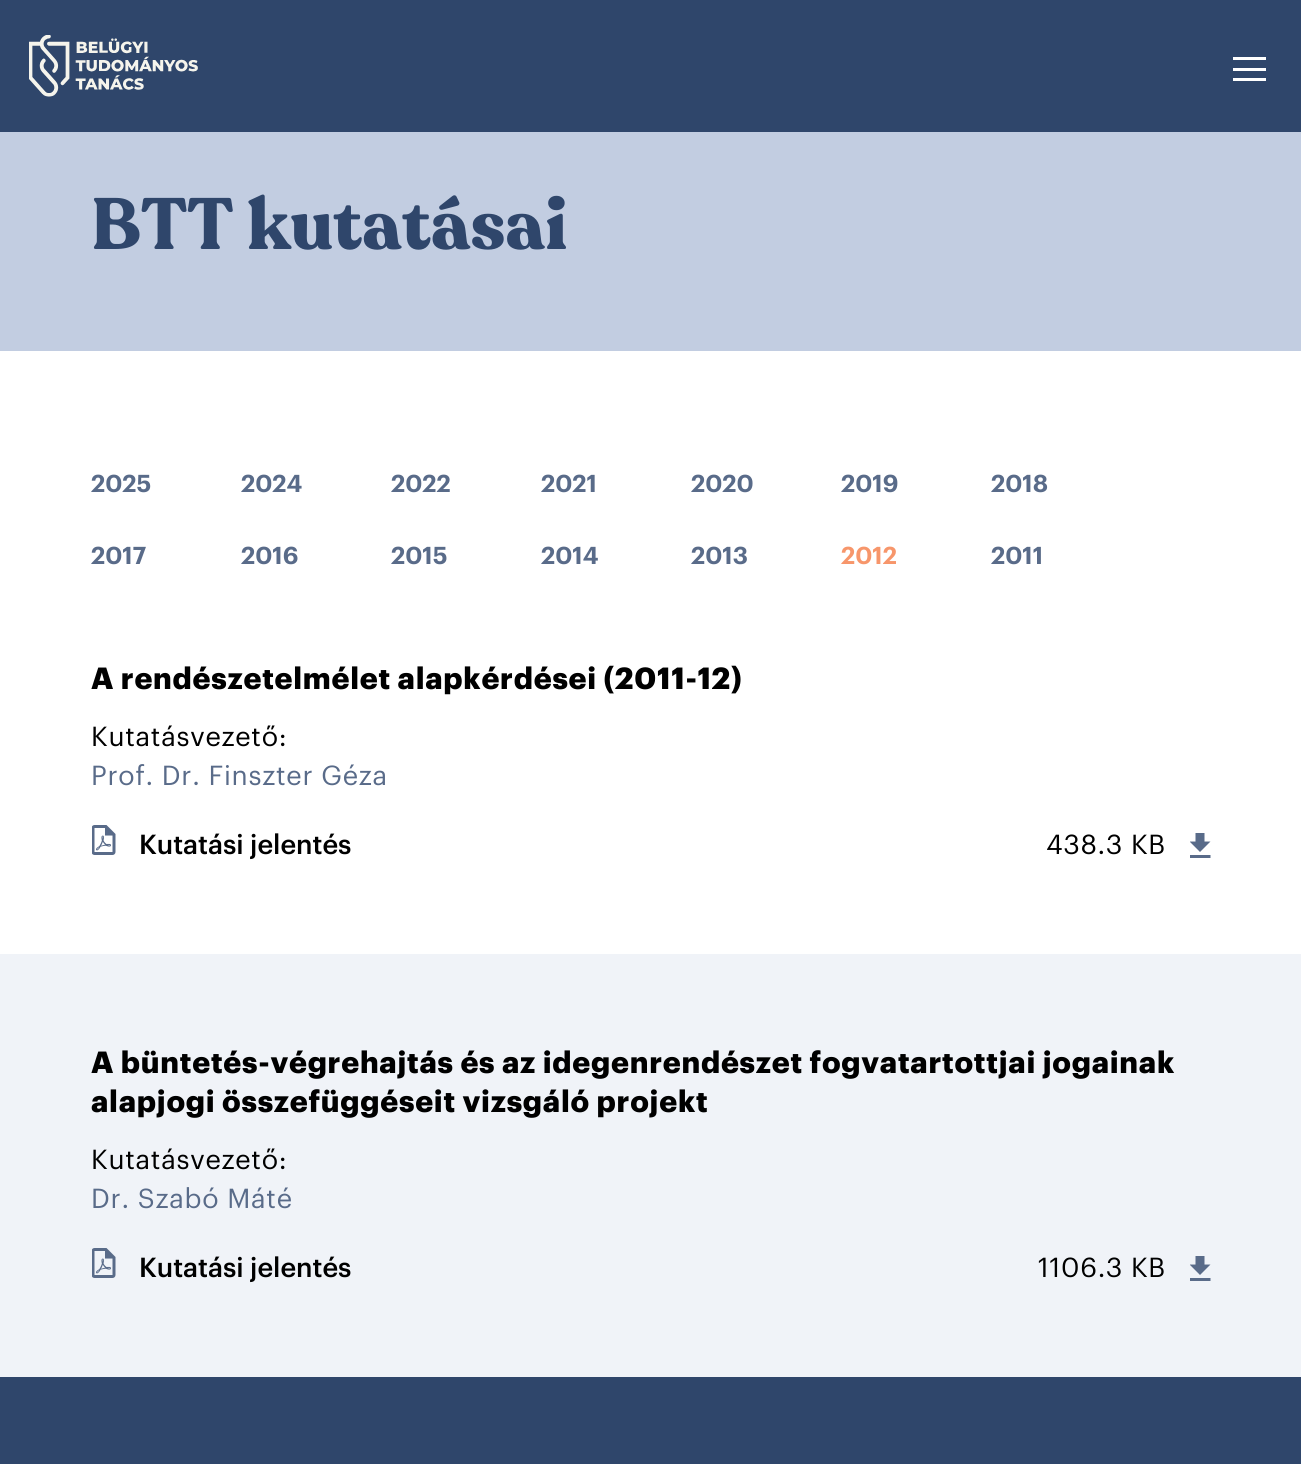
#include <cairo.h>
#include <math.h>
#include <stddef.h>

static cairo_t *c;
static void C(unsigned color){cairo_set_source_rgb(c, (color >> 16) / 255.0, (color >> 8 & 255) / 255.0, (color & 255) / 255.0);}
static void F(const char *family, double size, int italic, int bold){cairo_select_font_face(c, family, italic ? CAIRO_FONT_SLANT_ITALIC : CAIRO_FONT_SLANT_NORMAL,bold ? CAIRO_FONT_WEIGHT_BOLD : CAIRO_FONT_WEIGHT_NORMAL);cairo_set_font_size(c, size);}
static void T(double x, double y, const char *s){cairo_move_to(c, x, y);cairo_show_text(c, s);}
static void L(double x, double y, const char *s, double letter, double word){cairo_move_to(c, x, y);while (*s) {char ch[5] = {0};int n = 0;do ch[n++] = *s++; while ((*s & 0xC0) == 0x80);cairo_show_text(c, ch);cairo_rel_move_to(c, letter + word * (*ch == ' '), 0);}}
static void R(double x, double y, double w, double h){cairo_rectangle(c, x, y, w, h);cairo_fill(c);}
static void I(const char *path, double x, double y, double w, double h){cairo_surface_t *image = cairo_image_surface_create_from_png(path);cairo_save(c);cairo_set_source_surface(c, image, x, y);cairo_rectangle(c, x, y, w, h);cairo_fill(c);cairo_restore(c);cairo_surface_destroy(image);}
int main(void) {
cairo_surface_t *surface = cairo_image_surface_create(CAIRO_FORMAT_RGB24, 1301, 1464);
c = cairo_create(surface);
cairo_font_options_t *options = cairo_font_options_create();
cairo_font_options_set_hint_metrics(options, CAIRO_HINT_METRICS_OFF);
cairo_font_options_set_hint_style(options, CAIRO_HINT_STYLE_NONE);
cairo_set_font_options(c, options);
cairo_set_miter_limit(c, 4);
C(0xffffff);
cairo_paint(c);
C(0x2f466b);
R(0,0,1301,132);
I("1.png",29,35,169,62);
C(0xffffff);
R(1233,57,33,3);
R(1233,68,33,3);
R(1233,78,33,3);
C(0xc2cde1);
R(0,132,1301,219);
F("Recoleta",72,0,1);
C(0x2f466b);
T(91,249,"BTT kutatásai");
F("Graphik SemiBold",24,0,0);
C(0x596b89);
T(91,492,"2025");
T(241,492,"2024");
T(391,492,"2022");
T(541,492,"2021");
T(691,492,"2020");
T(841,492,"2019");
T(991,492,"2018");
T(91,564,"2017");
T(241,564,"2016");
T(391,564,"2015");
T(541,564,"2014");
T(691,564,"2013");
C(0xf7966b);
T(841,564,"2012");
C(0x596b89);
T(991,564,"2011");
F("Graphik",30,0,1);
C(0x000000);
L(91,689,"A rendészetelmélet alapkérdései (2011-12)",.75,0);
F("Graphik",27,0,0);
L(91,746,"Kutatásvezető:",.75,0);
C(0x596b89);
L(91,785,"Prof. Dr. Finszter Géza",.75,0);
I("2.png",92,825,24,30);
F("Graphik Medium",27,0,0);
C(0x000000);
T(139,854,"Kutatási jelentés");
F("Graphik",27,0,0);
L(1046,854,"438.3 KB",.75,0);
I("3.png",1190,833,21,25);
C(0xf0f3f8);
R(0,954,1301,423);
F("Graphik",30,0,1);
C(0x000000);
L(91,1073,"A büntetés-végrehajtás és az idegenrendészet fogvatartottjai jogainak",.75,0);
L(91,1112,"alapjogi összefüggéseit vizsgáló projekt",.75,0);
F("Graphik",27,0,0);
L(91,1169,"Kutatásvezető:",.75,0);
C(0x596b89);
L(91,1208,"Dr. Szabó Máté",.75,0);
I("4.png",92,1248,24,30);
F("Graphik Medium",27,0,0);
C(0x000000);
T(139,1277,"Kutatási jelentés");
F("Graphik",27,0,0);
L(1038,1277,"1106.3 KB",.75,0);
I("5.png",1190,1256,21,25);
C(0x2f466b);
R(0,1377,1301,87);
cairo_surface_write_to_png(surface, "o.png");
cairo_font_options_destroy(options);
cairo_destroy(c);
cairo_surface_destroy(surface);
return 0;
}
